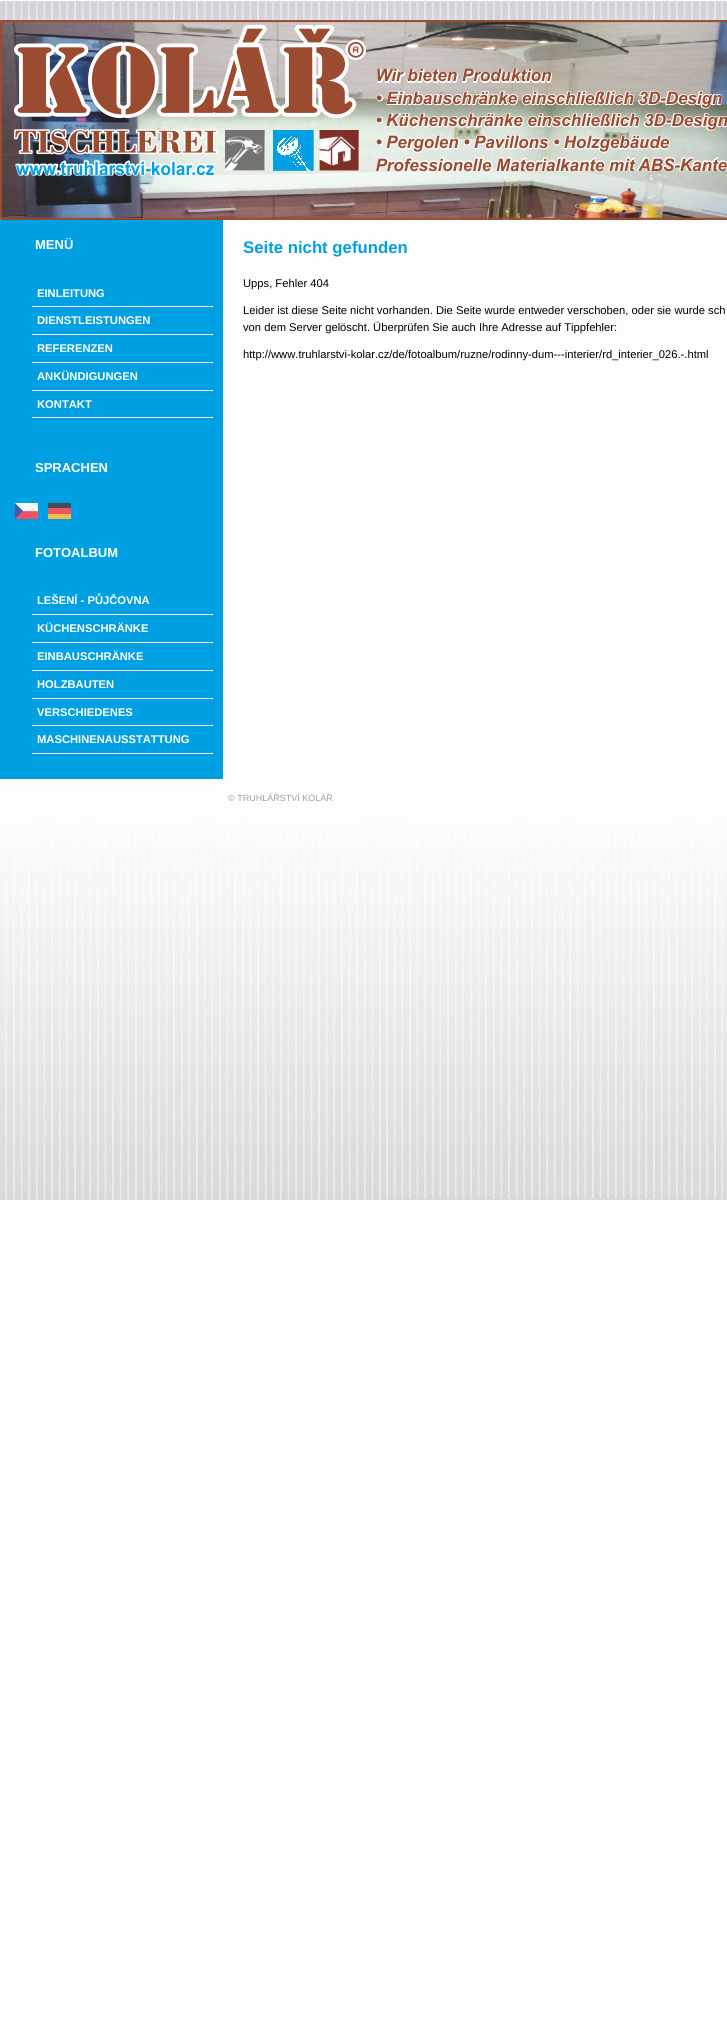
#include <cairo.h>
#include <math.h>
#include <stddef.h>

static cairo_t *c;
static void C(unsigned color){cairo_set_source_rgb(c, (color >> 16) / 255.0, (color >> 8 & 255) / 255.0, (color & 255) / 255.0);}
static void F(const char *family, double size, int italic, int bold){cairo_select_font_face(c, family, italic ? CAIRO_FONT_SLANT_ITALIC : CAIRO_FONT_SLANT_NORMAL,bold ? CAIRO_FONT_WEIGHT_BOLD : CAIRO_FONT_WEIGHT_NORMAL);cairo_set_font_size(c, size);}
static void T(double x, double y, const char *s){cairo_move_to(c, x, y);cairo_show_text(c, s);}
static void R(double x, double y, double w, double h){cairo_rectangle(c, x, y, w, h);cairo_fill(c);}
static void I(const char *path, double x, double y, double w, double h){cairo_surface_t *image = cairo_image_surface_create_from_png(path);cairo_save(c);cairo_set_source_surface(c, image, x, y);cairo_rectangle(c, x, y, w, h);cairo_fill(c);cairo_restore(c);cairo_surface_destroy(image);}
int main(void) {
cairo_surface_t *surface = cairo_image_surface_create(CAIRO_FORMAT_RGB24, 727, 2039);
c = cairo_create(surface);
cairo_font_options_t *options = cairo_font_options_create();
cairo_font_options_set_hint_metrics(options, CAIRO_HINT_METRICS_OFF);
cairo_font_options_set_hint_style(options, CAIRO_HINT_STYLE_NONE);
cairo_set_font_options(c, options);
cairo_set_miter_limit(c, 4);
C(0xffffff);
cairo_paint(c);
I("1.png",0,0,727,1200);
I("2.png",0,20,727,200);
C(0x00a0e3);
R(0,220,223,559);
F("Liberation Sans",13,0,1);
C(0xffffff);
T(35,249,"MENÜ");
R(32,306,181,1);
F("Liberation Sans",11.2,0,1);
T(37,297,"EINLEITUNG");
R(32,334,181,1);
T(37,324,"DIENSTLEISTUNGEN");
R(32,362,181,1);
T(37,352,"REFERENZEN");
R(32,390,181,1);
T(37,380,"ANKÜNDIGUNGEN");
R(32,417,181,1);
T(37,408,"KONTAKT");
F("Liberation Sans",13,0,1);
T(35,472,"SPRACHEN");
I("3.png",15,503,23,16);
I("4.png",48,503,23,16);
T(35,557,"FOTOALBUM");
R(32,614,181,1);
F("Liberation Sans",11.2,0,1);
T(37,604,"LEŠENÍ - PŮJČOVNA");
R(32,642,181,1);
T(37,632,"KÜCHENSCHRÄNKE");
R(32,670,181,1);
T(37,660,"EINBAUSCHRÄNKE");
R(32,698,181,1);
T(37,688,"HOLZBAUTEN");
R(32,725,181,1);
T(37,716,"VERSCHIEDENES");
R(32,753,181,1);
T(37,743,"MASCHINENAUSSTATTUNG");
F("Liberation Sans",16.75,0,1);
C(0x00a0e3);
T(243,253,"Seite nicht gefunden");
F("Liberation Sans",11.2,0,0);
C(0x000000);
T(243,287,"Upps, Fehler 404");
T(243,314,"Leider ist diese Seite nicht vorhanden. Die Seite wurde entweder verschoben, oder sie wurde sch");
T(243,331,"von dem Server gelöscht. Überprüfen Sie auch Ihre Adresse auf Tippfehler:");
T(243,358,"http://www.truhlarstvi-kolar.cz/de/fotoalbum/ruzne/rodinny-dum---interier/rd_interier_026.-.html");
F("Liberation Sans",9,0,0);
C(0xa1a1a1);
T(228,801,"© TRUHLÁŘSTVÍ KOLÁŘ");
cairo_surface_write_to_png(surface, "o.png");
cairo_font_options_destroy(options);
cairo_destroy(c);
cairo_surface_destroy(surface);
return 0;
}
